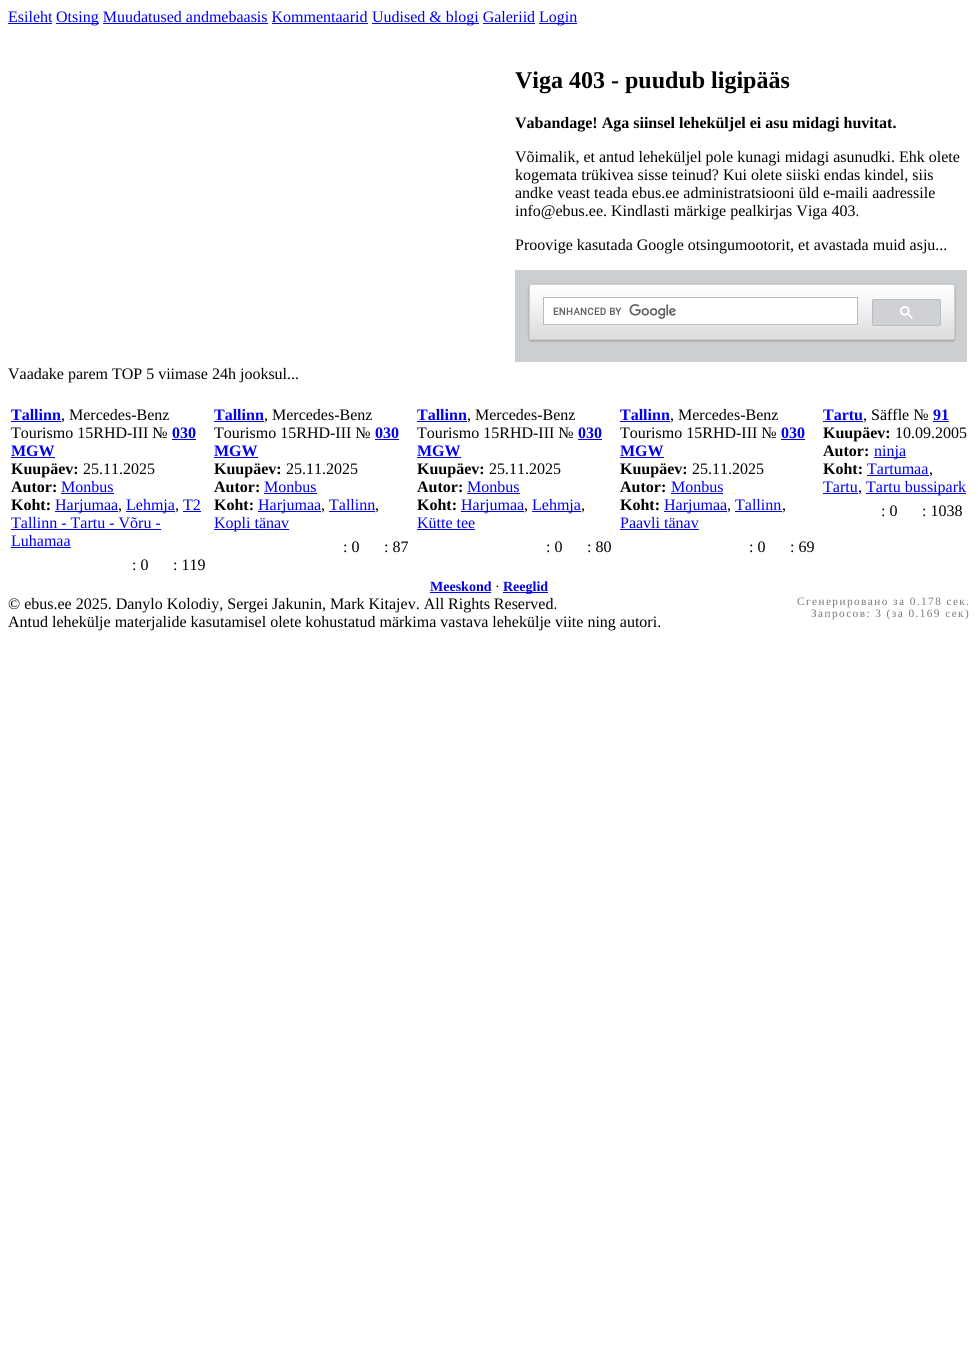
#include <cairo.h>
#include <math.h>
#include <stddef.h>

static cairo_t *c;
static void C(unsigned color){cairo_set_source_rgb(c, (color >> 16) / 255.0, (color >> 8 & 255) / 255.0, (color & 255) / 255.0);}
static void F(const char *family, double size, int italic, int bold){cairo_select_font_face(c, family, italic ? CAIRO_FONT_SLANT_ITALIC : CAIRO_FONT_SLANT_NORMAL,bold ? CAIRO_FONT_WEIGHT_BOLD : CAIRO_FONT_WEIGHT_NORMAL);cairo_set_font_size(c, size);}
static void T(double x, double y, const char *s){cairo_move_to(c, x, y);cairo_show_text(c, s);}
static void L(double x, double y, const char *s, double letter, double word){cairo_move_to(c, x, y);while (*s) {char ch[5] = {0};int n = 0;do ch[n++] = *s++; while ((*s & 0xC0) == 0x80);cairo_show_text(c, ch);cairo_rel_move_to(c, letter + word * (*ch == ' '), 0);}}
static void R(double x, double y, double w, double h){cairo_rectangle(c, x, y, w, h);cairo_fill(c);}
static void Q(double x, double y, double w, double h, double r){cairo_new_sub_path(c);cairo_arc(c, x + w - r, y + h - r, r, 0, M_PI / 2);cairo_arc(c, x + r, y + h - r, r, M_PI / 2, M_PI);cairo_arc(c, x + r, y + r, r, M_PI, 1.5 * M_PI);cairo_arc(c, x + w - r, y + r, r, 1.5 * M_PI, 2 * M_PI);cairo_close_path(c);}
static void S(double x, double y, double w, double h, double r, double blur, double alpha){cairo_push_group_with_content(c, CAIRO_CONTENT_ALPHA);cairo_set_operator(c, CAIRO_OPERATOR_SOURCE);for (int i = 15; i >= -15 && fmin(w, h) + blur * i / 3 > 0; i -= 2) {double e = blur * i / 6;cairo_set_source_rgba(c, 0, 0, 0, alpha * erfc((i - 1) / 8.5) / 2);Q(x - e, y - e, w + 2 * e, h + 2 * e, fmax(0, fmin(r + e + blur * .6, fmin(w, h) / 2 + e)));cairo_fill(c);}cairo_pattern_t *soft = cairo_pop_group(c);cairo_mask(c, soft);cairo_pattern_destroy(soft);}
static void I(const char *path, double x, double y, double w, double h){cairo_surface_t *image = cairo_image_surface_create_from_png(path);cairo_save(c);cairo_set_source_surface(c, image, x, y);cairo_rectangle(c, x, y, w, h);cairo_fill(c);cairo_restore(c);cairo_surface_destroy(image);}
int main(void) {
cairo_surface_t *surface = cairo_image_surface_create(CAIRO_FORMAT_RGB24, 978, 1361);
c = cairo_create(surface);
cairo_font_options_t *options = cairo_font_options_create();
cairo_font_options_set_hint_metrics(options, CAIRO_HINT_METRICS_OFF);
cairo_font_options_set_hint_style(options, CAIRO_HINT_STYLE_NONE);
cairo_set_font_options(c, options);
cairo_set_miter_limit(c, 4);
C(0xffffff);
cairo_paint(c);
F("Liberation Serif",16,0,0);
C(0x0000ee);
T(8,22,"Esileht");
R(8,23,44,1);
R(56,23,43,1);
T(56,22,"Otsing Muudatused andmebaasis Kommentaarid");
R(372,23,107,1);
T(372,22,"Uudised & blogi Galeriid");
R(539,23,38,1);
T(539,22,"Login");
R(103,23,165,1);
R(272,23,96,1);
R(483,23,52,1);
F("Liberation Serif",24,0,1);
C(0x000000);
T(515,88,"Viga 403 - puudub ligipääs");
F("Liberation Serif",16,0,1);
T(515,128,"Vabandage! Aga siinsel leheküljel ei asu midagi huvitat.");
F("Liberation Serif",16,0,0);
T(515,162,"Võimalik, et antud leheküljel pole kunagi midagi asunudki. Ehk olete");
T(515,180,"kogemata trükivea sisse teinud? Kui olete siiski endas kindel, siis");
T(515,198,"andke veast teada ebus.ee administratsiooni üld e-maili aadressile");
T(515,216,"info@ebus.ee. Kindlasti märkige pealkirjas Viga 403.");
T(515,250,"Proovige kasutada Google otsingumootorit, et avastada muid asju...");
C(0xcccfd1);
R(515,270,452,92);
C(0x999999);
S(529,285,426,56,2,1,1);
I("1.png",529,285,426,55);
Q(529.5,284.5,425,55,1.5);
C(0xcccccc);
cairo_set_line_width(c,1);
cairo_stroke(c);
C(0xffffff);
cairo_rectangle(c,543.5,297.5,314,27);
cairo_fill_preserve(c);
C(0xb6bec5);
cairo_stroke(c);
I("2.png",553,304,123,15);
C(0xd0d1d4);
Q(872.5,299.5,68,26,1.5);
cairo_fill_preserve(c);
C(0xb6bec5);
cairo_stroke(c);
I("3.png",900,306,13,13);
C(0x000000);
T(8,379,"Vaadake parem TOP 5 viimase 24h jooksul...");
F("Liberation Serif",16,0,1);
C(0x0000ee);
T(11,420,"Tallinn");
R(11,421,50,1);
F("Liberation Serif",16,0,0);
C(0x000000);
T(61,420,", Mercedes-Benz");
T(11,438,"Tourismo 15RHD-III №");
F("Liberation Serif",16,0,1);
C(0x0000ee);
T(172,438,"030");
R(172,439,24,1);
T(11,456,"MGW");
R(11,457,44,1);
C(0x000000);
T(11,474,"Kuupäev:");
F("Liberation Serif",16,0,0);
T(83,474,"25.11.2025");
F("Liberation Serif",16,0,1);
T(11,492,"Autor:");
F("Liberation Serif",16,0,0);
C(0x0000ee);
T(61,492,"Monbus");
R(61,493,53,1);
F("Liberation Serif",16,0,1);
C(0x000000);
T(11,510,"Koht:");
C(0x0000ee);
R(55,511,63,1);
F("Liberation Serif",16,0,0);
T(55,510,"Harjumaa");
R(126,511,49,1);
T(126,510,"Lehmja");
T(183,510,"T2");
R(183,511,18,1);
C(0x000000);
T(118,510,",");
T(175,510,",");
C(0x0000ee);
T(11,528,"Tallinn - Tartu - Võru -");
R(11,529,150,1);
T(11,546,"Luhamaa");
R(11,547,60,1);
C(0x000000);
T(132,570,": 0");
T(173,570,": 119");
F("Liberation Serif",16,0,1);
C(0x0000ee);
T(214,420,"Tallinn");
R(214,421,50,1);
F("Liberation Serif",16,0,0);
C(0x000000);
T(264,420,", Mercedes-Benz");
T(214,438,"Tourismo 15RHD-III №");
F("Liberation Serif",16,0,1);
C(0x0000ee);
T(375,438,"030");
R(375,439,24,1);
T(214,456,"MGW");
R(214,457,44,1);
C(0x000000);
T(214,474,"Kuupäev:");
F("Liberation Serif",16,0,0);
T(286,474,"25.11.2025");
F("Liberation Serif",16,0,1);
T(214,492,"Autor:");
F("Liberation Serif",16,0,0);
C(0x0000ee);
T(264,492,"Monbus");
R(264,493,53,1);
F("Liberation Serif",16,0,1);
C(0x000000);
T(214,510,"Koht:");
C(0x0000ee);
R(258,511,63,1);
F("Liberation Serif",16,0,0);
T(258,510,"Harjumaa");
C(0x000000);
T(321,510,",");
C(0x0000ee);
T(329,510,"Tallinn");
R(329,511,46,1);
C(0x000000);
T(375,510,",");
C(0x0000ee);
R(214,529,75,1);
T(214,528,"Kopli tänav");
C(0x000000);
T(343,552,": 0");
T(384,552,": 87");
F("Liberation Serif",16,0,1);
C(0x0000ee);
T(417,420,"Tallinn");
R(417,421,50,1);
F("Liberation Serif",16,0,0);
C(0x000000);
T(467,420,", Mercedes-Benz");
T(417,438,"Tourismo 15RHD-III №");
F("Liberation Serif",16,0,1);
C(0x0000ee);
T(578,438,"030");
R(578,439,24,1);
T(417,456,"MGW");
R(417,457,44,1);
C(0x000000);
T(417,474,"Kuupäev:");
F("Liberation Serif",16,0,0);
T(489,474,"25.11.2025");
F("Liberation Serif",16,0,1);
T(417,492,"Autor:");
F("Liberation Serif",16,0,0);
C(0x0000ee);
T(467,492,"Monbus");
R(467,493,53,1);
F("Liberation Serif",16,0,1);
C(0x000000);
T(417,510,"Koht:");
C(0x0000ee);
R(461,511,63,1);
F("Liberation Serif",16,0,0);
T(461,510,"Harjumaa");
C(0x000000);
T(524,510,",");
C(0x0000ee);
R(532,511,49,1);
T(532,510,"Lehmja");
C(0x000000);
T(581,510,",");
C(0x0000ee);
T(417,528,"Kütte tee");
R(417,529,58,1);
C(0x000000);
T(546,552,": 0");
T(587,552,": 80");
F("Liberation Serif",16,0,1);
C(0x0000ee);
T(620,420,"Tallinn");
R(620,421,50,1);
F("Liberation Serif",16,0,0);
C(0x000000);
T(670,420,", Mercedes-Benz");
T(620,438,"Tourismo 15RHD-III №");
F("Liberation Serif",16,0,1);
C(0x0000ee);
T(781,438,"030");
R(781,439,24,1);
T(620,456,"MGW");
R(620,457,44,1);
C(0x000000);
T(620,474,"Kuupäev:");
F("Liberation Serif",16,0,0);
T(692,474,"25.11.2025");
F("Liberation Serif",16,0,1);
T(620,492,"Autor:");
F("Liberation Serif",16,0,0);
C(0x0000ee);
T(671,492,"Monbus");
R(671,493,52,1);
F("Liberation Serif",16,0,1);
C(0x000000);
T(620,510,"Koht:");
C(0x0000ee);
R(664,511,63,1);
F("Liberation Serif",16,0,0);
T(664,510,"Harjumaa");
C(0x000000);
T(727,510,",");
C(0x0000ee);
T(735,510,"Tallinn");
R(735,511,47,1);
C(0x000000);
T(782,510,",");
C(0x0000ee);
T(620,528,"Paavli tänav");
R(620,529,79,1);
C(0x000000);
T(749,552,": 0");
T(790,552,": 69");
F("Liberation Serif",16,0,1);
C(0x0000ee);
T(823,420,"Tartu");
R(823,421,40,1);
F("Liberation Serif",16,0,0);
C(0x000000);
T(863,420,", Säffle №");
F("Liberation Serif",16,0,1);
C(0x0000ee);
T(933,420,"91");
R(933,421,16,1);
C(0x000000);
T(823,438,"Kuupäev:");
F("Liberation Serif",16,0,0);
T(895,438,"10.09.2005");
F("Liberation Serif",16,0,1);
T(823,456,"Autor:");
C(0x0000ee);
R(874,457,32,1);
F("Liberation Serif",16,0,0);
T(874,456,"ninja");
F("Liberation Serif",16,0,1);
C(0x000000);
T(823,474,"Koht:");
F("Liberation Serif",16,0,0);
C(0x0000ee);
T(867,474,"Tartumaa");
R(867,475,62,1);
C(0x000000);
T(929,474,",");
C(0x0000ee);
T(823,492,"Tartu");
R(823,493,35,1);
C(0x000000);
T(858,492,",");
C(0x0000ee);
R(866,493,100,1);
T(866,492,"Tartu bussipark");
C(0x000000);
T(881,516,": 0");
T(922,516,": 1038");
F("Liberation Serif",14,0,1);
C(0x0000ee);
T(430,591,"Meeskond");
R(430,592,61,1);
F("Liberation Serif",14,0,0);
C(0x000000);
T(495,591,"·");
C(0x0000ee);
R(503,592,45,1);
F("Liberation Serif",14,0,1);
T(503,591,"Reeglid");
F("Liberation Serif",16,0,0);
C(0x000000);
T(8,609,"© ebus.ee 2025. Danylo Kolodiy, Sergei Jakunin, Mark Kitajev. All Rights Reserved.");
F("Liberation Serif",11.25,0,0);
C(0x777777);
L(797,605,"Сгенерировано за 0.178 сек.",1.45,0);
L(811,617,"Запросов: 3 (за 0.169 сек)",1.45,0);
F("Liberation Serif",16,0,0);
C(0x000000);
T(8,627,"Antud lehekülje materjalide kasutamisel olete kohustatud märkima vastava lehekülje viite ning autori.");
cairo_surface_write_to_png(surface, "o.png");
cairo_font_options_destroy(options);
cairo_destroy(c);
cairo_surface_destroy(surface);
return 0;
}
